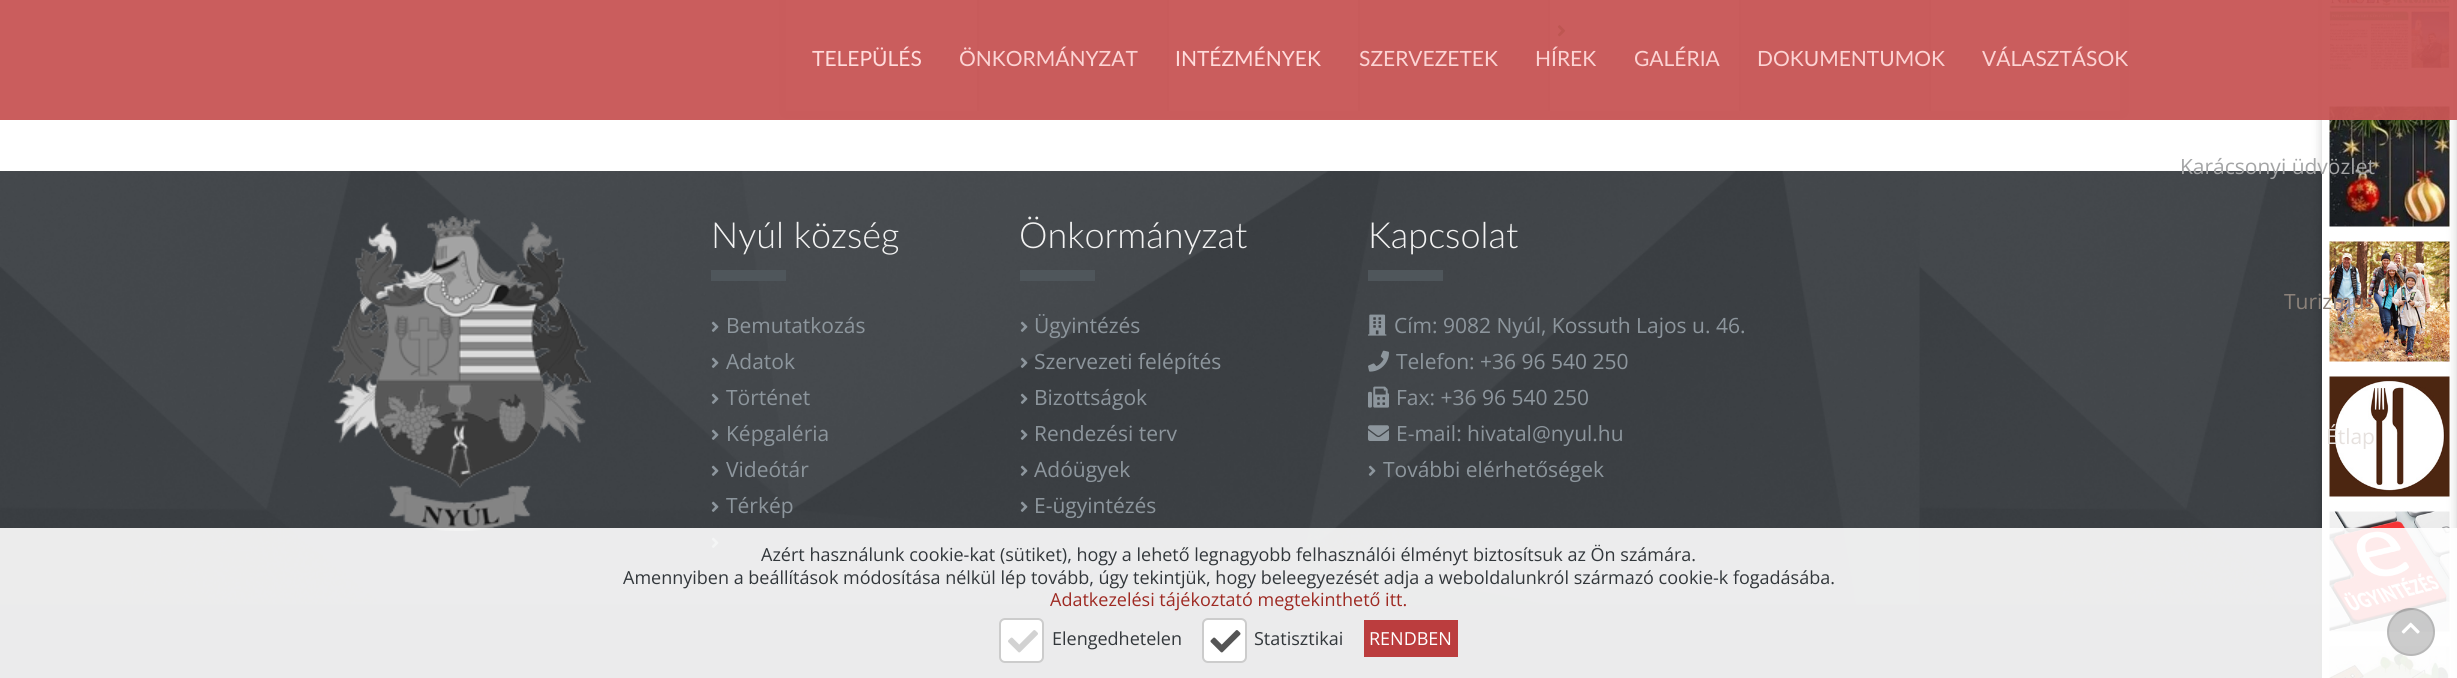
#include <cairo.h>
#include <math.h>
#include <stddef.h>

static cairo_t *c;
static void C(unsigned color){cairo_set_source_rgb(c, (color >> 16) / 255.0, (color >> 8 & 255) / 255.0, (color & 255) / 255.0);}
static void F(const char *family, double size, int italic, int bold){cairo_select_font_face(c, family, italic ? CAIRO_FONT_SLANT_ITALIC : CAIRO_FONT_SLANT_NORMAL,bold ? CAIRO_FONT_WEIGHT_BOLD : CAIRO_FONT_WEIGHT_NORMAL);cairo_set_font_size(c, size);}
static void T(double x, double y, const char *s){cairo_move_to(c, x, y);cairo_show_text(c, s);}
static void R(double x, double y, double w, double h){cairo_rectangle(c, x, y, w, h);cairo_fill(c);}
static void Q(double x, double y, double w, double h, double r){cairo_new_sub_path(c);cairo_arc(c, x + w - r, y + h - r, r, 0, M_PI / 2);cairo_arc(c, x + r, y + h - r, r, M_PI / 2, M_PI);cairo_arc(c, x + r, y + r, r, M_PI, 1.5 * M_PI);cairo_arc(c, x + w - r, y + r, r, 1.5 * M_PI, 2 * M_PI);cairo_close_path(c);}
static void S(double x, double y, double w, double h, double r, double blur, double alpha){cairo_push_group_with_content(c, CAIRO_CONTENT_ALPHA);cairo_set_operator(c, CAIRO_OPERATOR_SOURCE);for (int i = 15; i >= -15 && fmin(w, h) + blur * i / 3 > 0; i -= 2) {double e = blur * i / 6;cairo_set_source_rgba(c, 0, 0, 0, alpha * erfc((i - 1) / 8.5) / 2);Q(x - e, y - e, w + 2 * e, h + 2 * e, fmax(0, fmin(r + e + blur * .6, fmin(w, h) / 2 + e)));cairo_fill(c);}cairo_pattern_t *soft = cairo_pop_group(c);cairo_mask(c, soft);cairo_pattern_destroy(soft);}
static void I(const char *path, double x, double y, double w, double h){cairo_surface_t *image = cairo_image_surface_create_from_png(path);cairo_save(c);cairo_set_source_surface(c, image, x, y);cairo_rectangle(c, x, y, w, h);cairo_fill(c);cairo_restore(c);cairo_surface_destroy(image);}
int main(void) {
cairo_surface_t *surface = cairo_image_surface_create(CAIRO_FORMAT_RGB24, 2457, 678);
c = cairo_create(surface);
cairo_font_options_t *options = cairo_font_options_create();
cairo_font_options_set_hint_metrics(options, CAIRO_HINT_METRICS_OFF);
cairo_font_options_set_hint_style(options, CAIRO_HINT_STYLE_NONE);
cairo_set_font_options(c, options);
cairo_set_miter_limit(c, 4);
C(0x32373b);
cairo_paint(c);
C(0xffffff);
R(0,0,2322,171);
C(0xecf0f1);
cairo_new_path(c);
cairo_move_to(c,779,-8);
cairo_line_to(c,2129,-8);
cairo_line_to(c,2129,111);
cairo_curve_to(c,2129,115.5,2125.5,119,2121,119);
cairo_line_to(c,787,119);
cairo_curve_to(c,782.5,119,779,115.5,779,111);
cairo_close_path(c);
cairo_fill(c);
C(0xfafafa);
R(786,0,191,111);
C(0xd4d6d7);
R(977,0,2,111);
C(0xfafafa);
R(1169,0,189,111);
C(0xd4d6d7);
R(1167,0,2,111);
R(1358,0,2,111);
C(0xfafafa);
R(1550,0,189,111);
C(0xd4d6d7);
R(1548,0,2,111);
I("1.png",1557,25,9,12);
R(1739,0,2,111);
C(0xfafafa);
R(1931,0,189,111);
C(0xd4d6d7);
R(1929,0,2,111);
I("2.png",0,171,2322,434);
C(0x000000);
S(2322,-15,135,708,0,5,.2);
C(0xffffff);
R(2322,0,135,678);
I("22.png",2329,0,121,72);
I("23.png",2329,106,121,121);
I("24.png",2329,241,121,121);
I("25.png",2329,376,121,121);
I("26.png",2329,511,121,121);
I("27.png",2329,646,121,32);
C(0x000000);
S(2457,-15,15,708,0,5,.2);
cairo_set_source_rgba(c,0.784,0.337,0.337,0.95);
R(0,0,2457,120);
F("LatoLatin",21,0,0);
C(0xffdbdb);
T(812,66,"TELEPÜLÉS");
C(0xfcd3d3);
T(959,66,"ÖNKORMÁNYZAT");
C(0xffdbdb);
T(1175,66,"INTÉZMÉNYEK");
C(0xfcd3d3);
T(1359,66,"SZERVEZETEK");
T(1535,66,"HÍREK");
T(1634,66,"GALÉRIA");
T(1757,66,"DOKUMENTUMOK");
T(1982,66,"VÁLASZTÁSOK");
I("3.png",328,216,263,315);
F("LatoLatin Light",36,0,0);
C(0xf2f2f2);
T(711,248,"Nyúl község");
C(0x4f565b);
R(711,270,75,11);
I("4.png",711,321,8,11);
F("Open Sans",21,0,0);
C(0x8d969d);
T(726,333,"Bemutatkozás");
I("5.png",711,357,8,11);
T(726,369,"Adatok");
I("6.png",711,393,8,11);
T(726,405,"Történet");
I("7.png",711,429,8,11);
T(726,441,"Képgaléria");
I("8.png",711,465,8,11);
T(726,477,"Videótár");
I("9.png",711,501,8,11);
T(726,513,"Térkép");
I("10.png",711,537,8,11);
F("LatoLatin Light",36,0,0);
C(0xf2f2f2);
T(1019,248,"Önkormányzat");
C(0x4f565b);
R(1020,270,75,11);
I("11.png",1020,321,8,11);
F("Open Sans",21,0,0);
C(0x8d969d);
T(1034,333,"Ügyintézés");
I("12.png",1020,357,8,11);
T(1034,369,"Szervezeti felépítés");
I("13.png",1020,393,8,11);
T(1034,405,"Bizottságok");
I("14.png",1020,429,8,11);
T(1034,441,"Rendezési terv");
I("15.png",1020,465,8,11);
T(1034,477,"Adóügyek");
I("16.png",1020,501,8,11);
T(1034,513,"E-ügyintézés");
F("LatoLatin Light",36,0,0);
C(0xf2f2f2);
T(1368,248,"Kapcsolat");
C(0x4f565b);
R(1368,270,75,11);
I("17.png",1368,314,19,22);
F("Open Sans",21,0,0);
C(0x8d969d);
T(1394,333,"Cím: 9082 Nyúl, Kossuth Lajos u. 46.");
I("18.png",1368,350,21,22);
T(1396,369,"Telefon: +36 96 540 250");
I("19.png",1368,386,21,22);
T(1396,405,"Fax: +36 96 540 250");
I("20.png",1368,425,21,16);
T(1396,441,"E-mail: hivatal@nyul.hu");
I("21.png",1368,465,8,11);
T(1383,477,"További elérhetőségek");
C(0xa4a5a6);
T(2180,174,"Karácsonyi üdvözlet");
C(0x8c827a);
T(2284,309,"Turizmus");
C(0xe6e1de);
T(2326,444,"Étlap");
cairo_set_source_rgba(c,1,1,1,0.9);
R(0,528,2457,150);
F("Open Sans",18,0,0);
C(0x32373b);
T(761,561,"Azért használunk cookie-kat (sütiket), hogy a lehető legnagyobb felhasználói élményt biztosítsuk az Ön számára.");
T(623,584,"Amennyiben a beállítások módosítása nélkül lép tovább, úgy tekintjük, hogy beleegyezését adja a weboldalunkról származó cookie-k fogadásába.");
C(0x9e2a23);
T(1050,606,"Adatkezelési tájékoztató megtekinthető itt.");
C(0xffffff);
Q(1000,619,43,43,5);
cairo_fill_preserve(c);
C(0xcccccc);
cairo_stroke(c);
I("28.png",1008,630,30,23);
C(0x32373b);
T(1052,645,"Elengedhetelen");
C(0xffffff);
Q(1203,619,43,43,5);
cairo_fill_preserve(c);
C(0xcccccc);
cairo_stroke(c);
I("29.png",1210,630,31,23);
C(0x32373b);
T(1254,645,"Statisztikai");
C(0xbb3d3e);
R(1364,620,94,37);
C(0xffffff);
T(1369,645,"RENDBEN");
cairo_set_source_rgba(c,0,0,0,0.2);
cairo_new_path(c);
cairo_arc(c,2411,632,24,0,2 * M_PI);
cairo_fill(c);
cairo_arc(c,2411,632,23,0,2 * M_PI);
cairo_set_source_rgba(c,0,0,0,0.1);
cairo_stroke(c);
I("30.png",2401,622,19,12);
cairo_surface_write_to_png(surface, "o.png");
cairo_font_options_destroy(options);
cairo_destroy(c);
cairo_surface_destroy(surface);
return 0;
}
